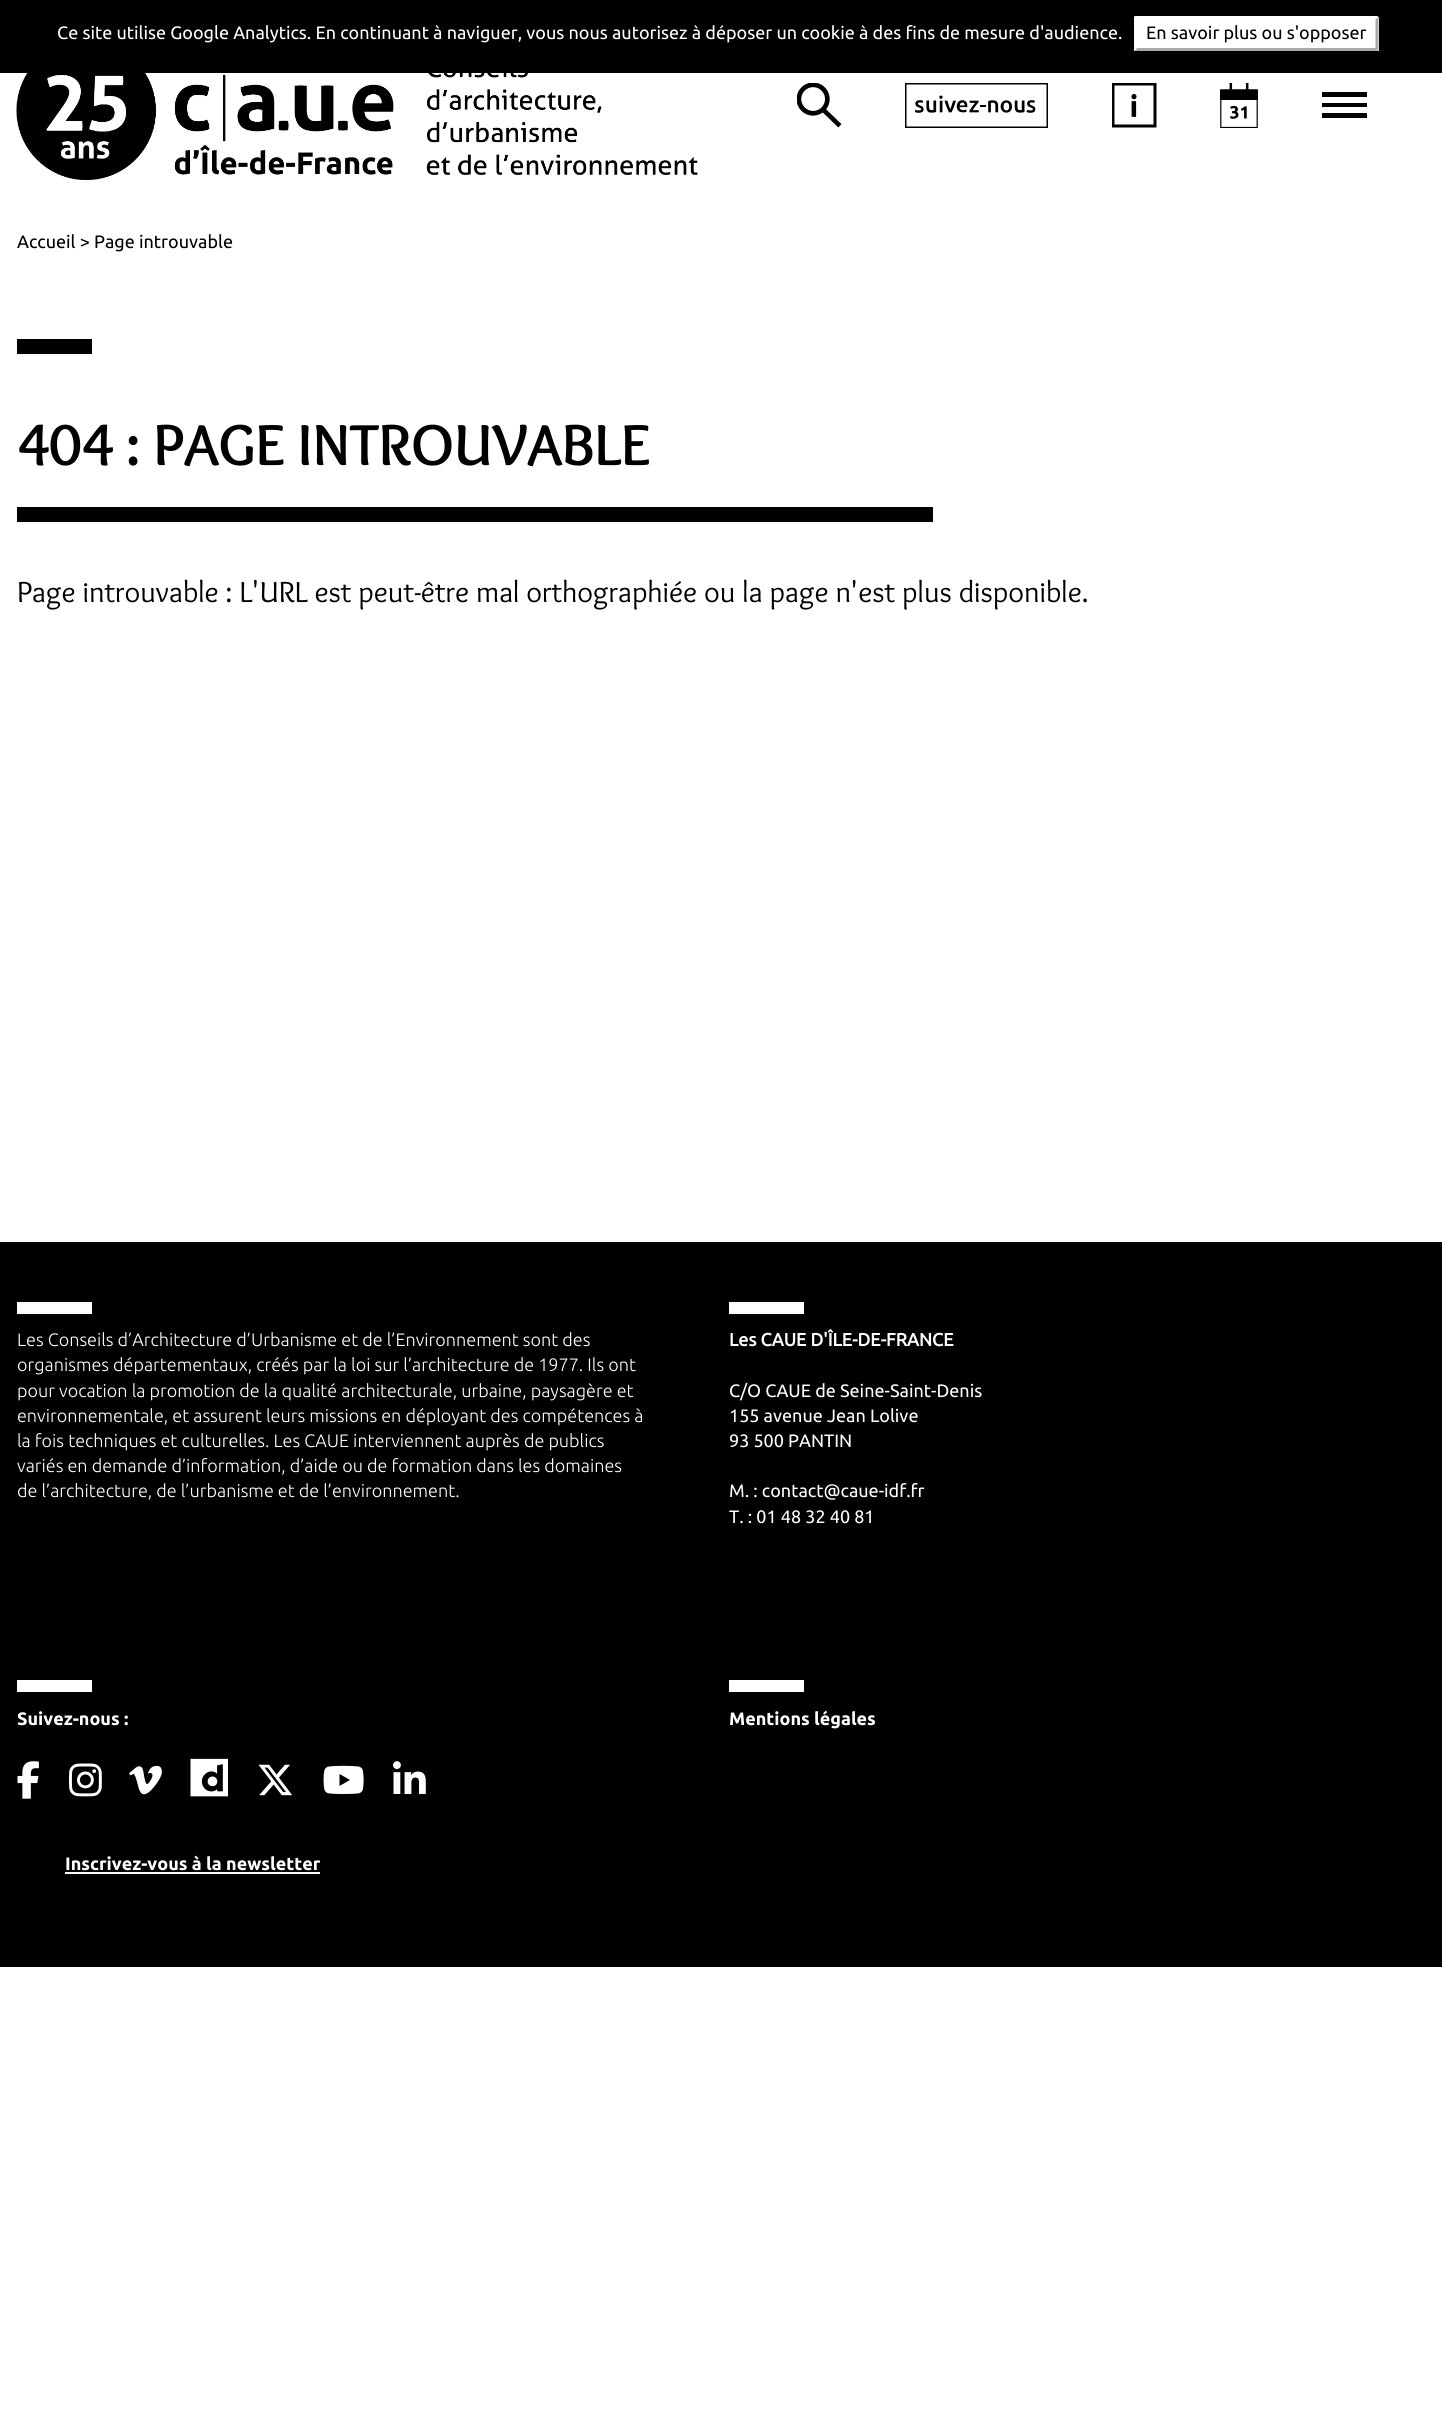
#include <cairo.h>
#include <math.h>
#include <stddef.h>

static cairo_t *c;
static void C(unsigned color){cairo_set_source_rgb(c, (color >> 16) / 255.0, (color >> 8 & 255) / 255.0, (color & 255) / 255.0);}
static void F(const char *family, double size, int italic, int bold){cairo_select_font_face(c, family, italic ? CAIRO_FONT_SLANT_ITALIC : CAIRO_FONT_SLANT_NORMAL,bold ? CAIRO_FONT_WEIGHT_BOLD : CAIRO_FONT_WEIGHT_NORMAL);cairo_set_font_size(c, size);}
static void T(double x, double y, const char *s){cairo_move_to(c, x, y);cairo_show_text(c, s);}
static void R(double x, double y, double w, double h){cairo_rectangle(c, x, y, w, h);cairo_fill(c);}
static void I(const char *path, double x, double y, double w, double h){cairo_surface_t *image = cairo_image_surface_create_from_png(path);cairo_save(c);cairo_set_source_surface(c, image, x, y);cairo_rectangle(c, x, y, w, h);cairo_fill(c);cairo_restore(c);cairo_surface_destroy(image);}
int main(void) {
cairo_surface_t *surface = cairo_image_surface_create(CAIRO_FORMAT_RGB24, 1442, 2424);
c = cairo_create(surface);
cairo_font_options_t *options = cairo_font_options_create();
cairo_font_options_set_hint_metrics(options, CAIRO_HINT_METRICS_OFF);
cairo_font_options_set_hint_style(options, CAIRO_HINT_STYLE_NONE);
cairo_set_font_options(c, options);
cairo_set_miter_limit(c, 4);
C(0xffffff);
cairo_paint(c);
C(0x000000);
R(0,0,1442,73);
F("Ubuntu",18,0,0);
C(0xffffff);
T(57,39,"Ce site utilise Google Analytics. En continuant à naviguer, vous nous autorisez à déposer un cookie à des fins de mesure d'audience.");
R(1134,17,245,34);
cairo_new_path(c);
cairo_move_to(c,1134,16);
cairo_line_to(c,1378,16);
cairo_line_to(c,1376,20);
cairo_line_to(c,1137,20);
cairo_close_path(c);
cairo_fill(c);
C(0xaaaaaa);
cairo_new_path(c);
cairo_move_to(c,1378.5,16.5);
cairo_line_to(c,1378.5,51);
cairo_line_to(c,1375.5,48);
cairo_line_to(c,1375.5,19.5);
cairo_close_path(c);
cairo_fill(c);
cairo_new_path(c);
cairo_move_to(c,1378,51);
cairo_line_to(c,1134,51);
cairo_line_to(c,1137,48);
cairo_line_to(c,1376,48);
cairo_close_path(c);
cairo_fill(c);
C(0xffffff);
cairo_new_path(c);
cairo_move_to(c,1134,51);
cairo_line_to(c,1134,16.5);
cairo_line_to(c,1137,19.5);
cairo_line_to(c,1137,48);
cairo_close_path(c);
cairo_fill(c);
C(0x000000);
T(1146,39,"En savoir plus ou s'opposer");
I("1.png",16,73,682,107);
I("2.png",797,83,45,45);
I("3.png",905,83,143,45);
I("4.png",1112,83,45,45);
I("5.png",1220,83,38,45);
R(1322,92,45,5);
R(1322,103,45,4);
R(1322,113,45,5);
T(17,248,"Accueil > Page introuvable");
R(17,339,75,15);
F("Overlock",60,0,1);
T(17,465,"404 : PAGE INTROUVABLE");
R(17,507,916,15);
F("Overlock",30,0,0);
T(17,602,"Page introuvable : L'URL est peut-être mal orthographiée ou la page n'est plus disponible.");
R(0,1242,1442,725);
C(0xffffff);
R(17,1302,75,12);
F("Ubuntu Light",18,0,0);
T(17,1346,"Les Conseils d’Architecture d’Urbanisme et de l’Environnement sont des");
T(17,1371,"organismes départementaux, créés par la loi sur l’architecture de 1977. Ils ont");
T(17,1397,"pour vocation la promotion de la qualité architecturale, urbaine, paysagère et");
T(17,1422,"environnementale, et assurent leurs missions en déployant des compétences à");
T(17,1447,"la fois techniques et culturelles. Les CAUE interviennent auprès de publics");
T(17,1472,"variés en demande d’information, d’aide ou de formation dans les domaines");
T(17,1497,"de l’architecture, de l’urbanisme et de l’environnement.");
R(729,1302,75,12);
F("Ubuntu",18,0,1);
T(729,1346,"Les CAUE D'ÎLE-DE-FRANCE");
F("Ubuntu",18,0,0);
T(729,1397,"C/O CAUE de Seine-Saint-Denis");
T(729,1422,"155 avenue Jean Lolive");
T(729,1447,"93 500 PANTIN");
T(729,1497,"M. : contact@caue-idf.fr");
T(729,1523,"T. : 01 48 32 40 81");
R(17,1680,75,12);
F("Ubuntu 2",18,0,1);
T(17,1725,"Suivez-nous :");
I("6.png",17,1761,22,38);
I("7.png",69,1763,33,34);
I("8.png",129,1765,33,30);
I("9.png",190,1758,38,39);
I("10.png",258,1764,35,32);
I("11.png",323,1765,41,29);
I("12.png",393,1761,33,33);
T(65,1870,"Inscrivez-vous à la newsletter");
R(65,1872,255,2);
R(729,1680,75,12);
T(729,1725,"Mentions légales");
cairo_surface_write_to_png(surface, "o.png");
cairo_font_options_destroy(options);
cairo_destroy(c);
cairo_surface_destroy(surface);
return 0;
}
